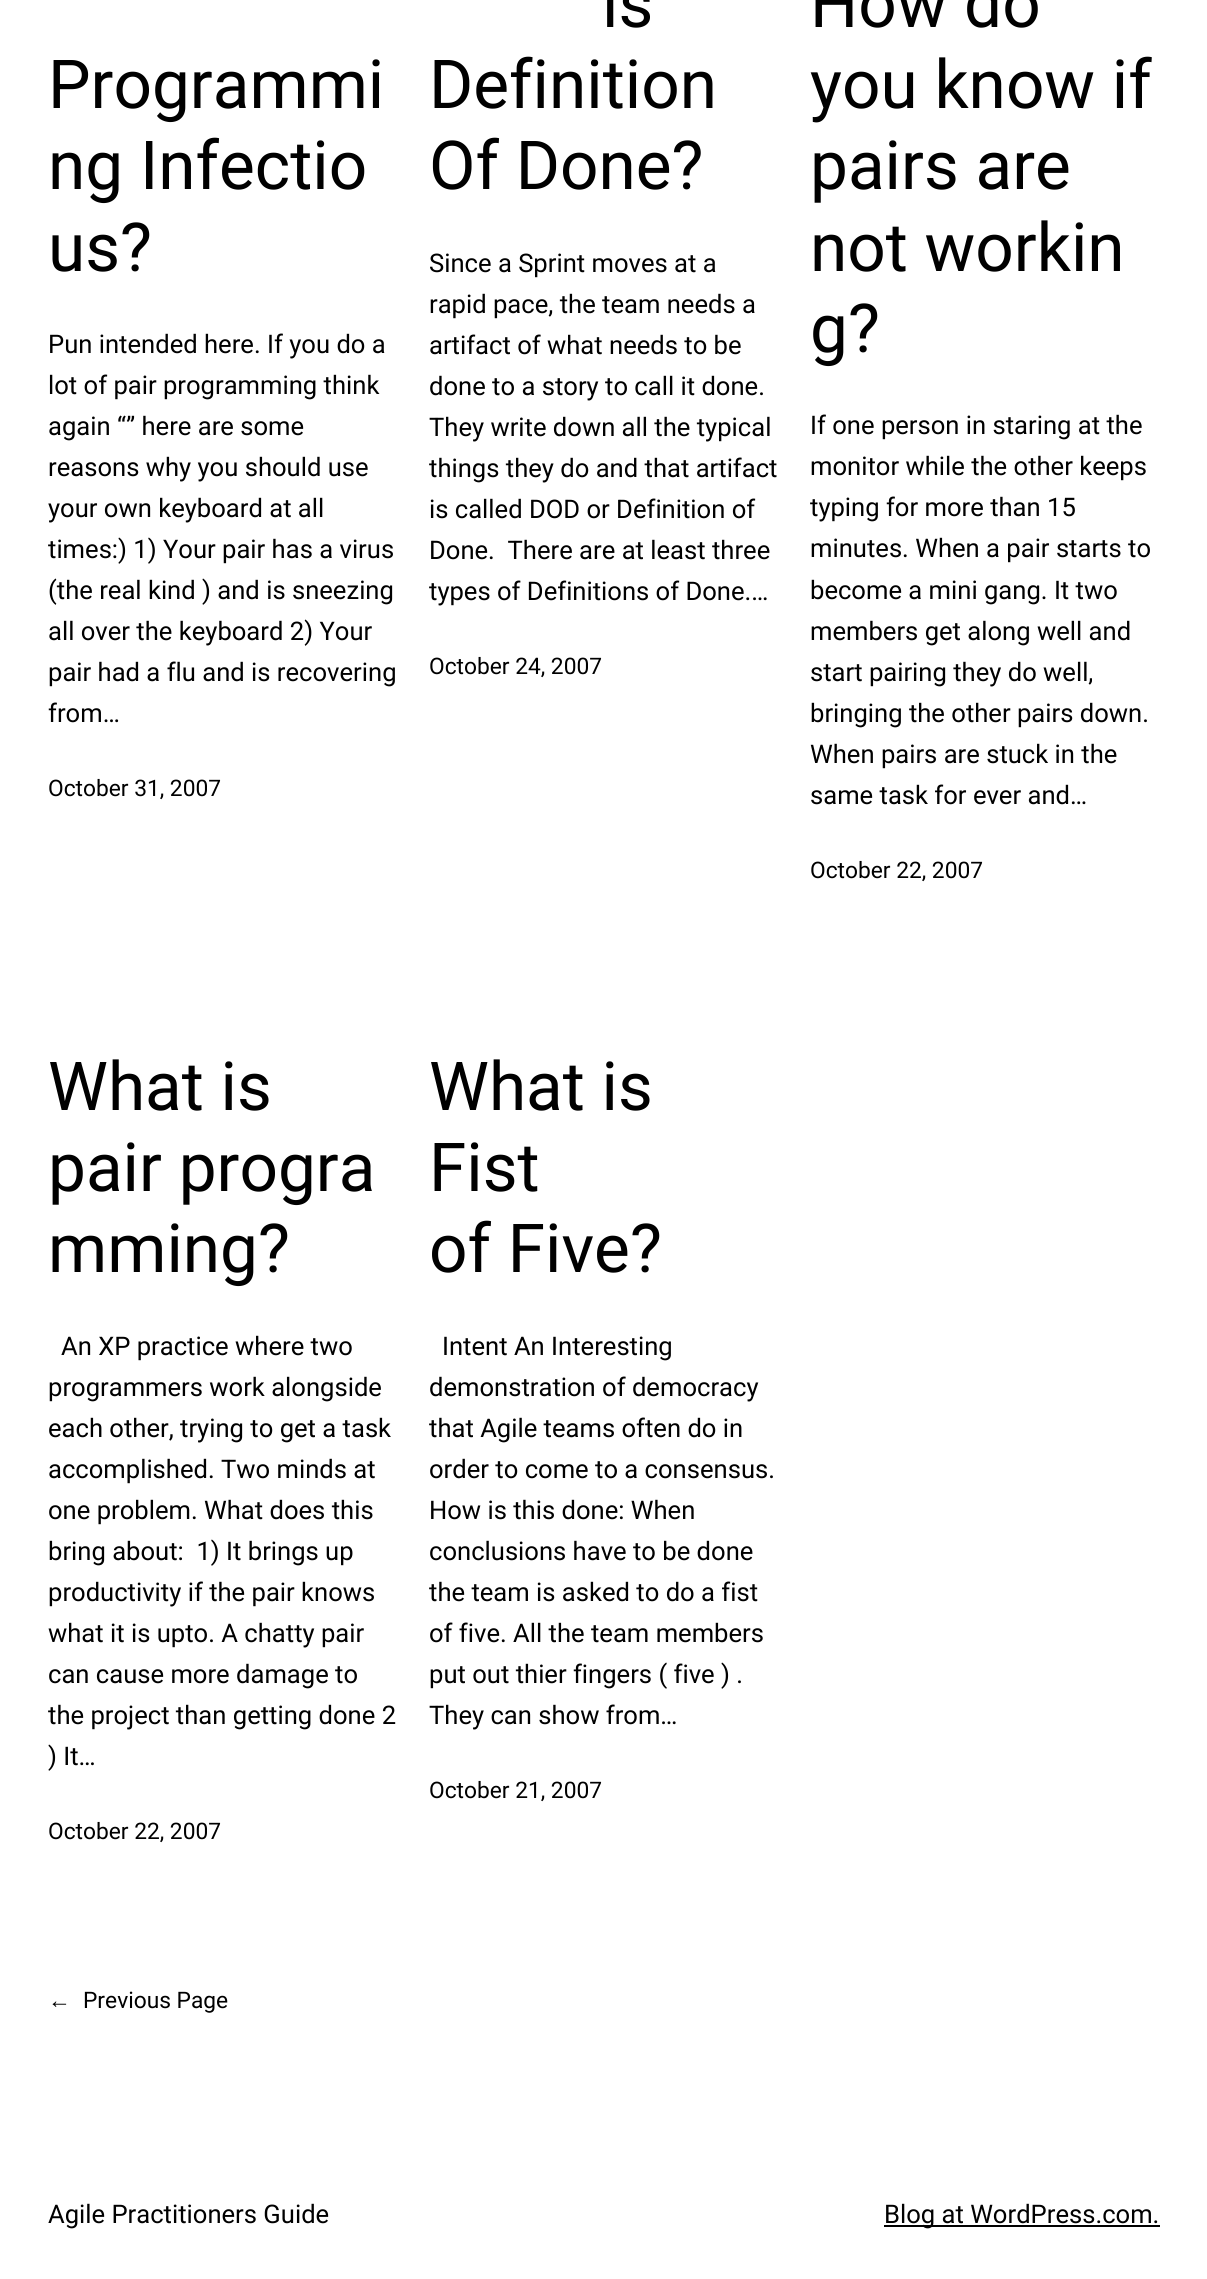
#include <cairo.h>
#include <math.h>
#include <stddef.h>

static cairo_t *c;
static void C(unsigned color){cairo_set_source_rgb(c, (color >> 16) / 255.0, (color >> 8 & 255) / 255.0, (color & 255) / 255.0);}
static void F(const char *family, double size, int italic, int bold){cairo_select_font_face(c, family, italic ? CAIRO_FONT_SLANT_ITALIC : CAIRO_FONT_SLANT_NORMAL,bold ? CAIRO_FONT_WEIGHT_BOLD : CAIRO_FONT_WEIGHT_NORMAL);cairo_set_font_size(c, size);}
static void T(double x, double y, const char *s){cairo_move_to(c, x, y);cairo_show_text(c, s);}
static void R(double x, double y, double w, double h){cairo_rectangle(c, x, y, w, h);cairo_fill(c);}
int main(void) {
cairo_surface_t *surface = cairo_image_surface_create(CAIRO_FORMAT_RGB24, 1207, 2279);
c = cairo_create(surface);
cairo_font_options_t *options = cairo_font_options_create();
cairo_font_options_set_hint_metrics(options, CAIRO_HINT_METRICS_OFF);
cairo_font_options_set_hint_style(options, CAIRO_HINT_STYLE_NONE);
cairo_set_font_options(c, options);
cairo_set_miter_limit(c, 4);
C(0xffffff);
cairo_paint(c);
F("Roboto",67.5,0,0);
C(0x000000);
T(48,108,"Programmi");
T(48,189,"ng Infectio");
T(48,271,"us?");
F("Roboto",25.6,0,0);
T(48,353,"Pun intended here. If you do a");
T(48,394,"lot of pair programming think");
T(48,435,"again “” here are some");
T(48,476,"reasons why you should use");
T(48,517,"your own keyboard at all");
T(48,558,"times:) 1) Your pair has a virus");
T(48,599,"(the real kind ) and is sneezing");
T(48,640,"all over the keyboard 2) Your");
T(48,681,"pair had a flu and is recovering");
T(48,722,"from…");
F("Roboto",22.75,0,0);
T(48,796,"October 31, 2007");
F("Roboto",67.5,0,0);
T(602,27,"is");
T(429,108,"Definition");
T(429,189,"Of Done?");
F("Roboto",25.6,0,0);
T(429,272,"Since a Sprint moves at a");
T(429,313,"rapid pace, the team needs a");
T(429,354,"artifact of what needs to be");
T(429,395,"done to a story to call it done.");
T(429,436,"They write down all the typical");
T(429,477,"things they do and that artifact");
T(429,518,"is called DOD or Definition of");
T(429,559,"Done.  There are at least three");
T(429,600,"types of Definitions of Done.…");
F("Roboto",22.75,0,0);
T(429,674,"October 24, 2007");
F("Roboto",67.5,0,0);
T(810,27,"How do");
T(810,108,"you know if");
T(810,189,"pairs are");
T(810,271,"not workin");
T(810,352,"g?");
F("Roboto",25.6,0,0);
T(810,434,"If one person in staring at the");
T(810,475,"monitor while the other keeps");
T(810,516,"typing for more than 15");
T(810,557,"minutes. When a pair starts to");
T(810,599,"become a mini gang. It two");
T(810,640,"members get along well and");
T(810,681,"start pairing they do well,");
T(810,722,"bringing the other pairs down.");
T(810,763,"When pairs are stuck in the");
T(810,804,"same task for ever and…");
F("Roboto",22.75,0,0);
T(810,878,"October 22, 2007");
F("Roboto",67.5,0,0);
T(48,1110,"What is");
T(48,1191,"pair progra");
T(48,1272,"mming?");
F("Roboto",25.6,0,0);
T(61,1355,"An XP practice where two");
T(48,1396,"programmers work alongside");
T(48,1437,"each other, trying to get a task");
T(48,1478,"accomplished. Two minds at");
T(48,1519,"one problem. What does this");
T(48,1560,"bring about:  1) It brings up");
T(48,1601,"productivity if the pair knows");
T(48,1642,"what it is upto. A chatty pair");
T(48,1683,"can cause more damage to");
T(48,1724,"the project than getting done 2");
T(48,1765,") It…");
F("Roboto",22.75,0,0);
T(48,1839,"October 22, 2007");
F("Roboto",67.5,0,0);
T(429,1110,"What is");
T(429,1191,"Fist");
T(429,1272,"of Five?");
F("Roboto",25.6,0,0);
T(442,1355,"Intent An Interesting");
T(429,1396,"demonstration of democracy");
T(429,1437,"that Agile teams often do in");
T(429,1478,"order to come to a consensus.");
T(429,1519,"How is this done: When");
T(429,1560,"conclusions have to be done");
T(429,1601,"the team is asked to do a fist");
T(429,1642,"of five. All the team members");
T(429,1683,"put out thier fingers ( five ) .");
T(429,1724,"They can show from…");
F("Roboto",22.75,0,0);
T(429,1798,"October 21, 2007");
F("Liberation Sans",22.75,0,0);
T(48,2008,"←");
F("Roboto",22.75,0,0);
T(83,2008,"Previous Page");
F("Roboto",25.6,0,0);
T(48,2223,"Agile Practitioners Guide");
R(884,2225,276,2);
T(884,2223,"Blog at WordPress.com.");
cairo_surface_write_to_png(surface, "o.png");
cairo_font_options_destroy(options);
cairo_destroy(c);
cairo_surface_destroy(surface);
return 0;
}
